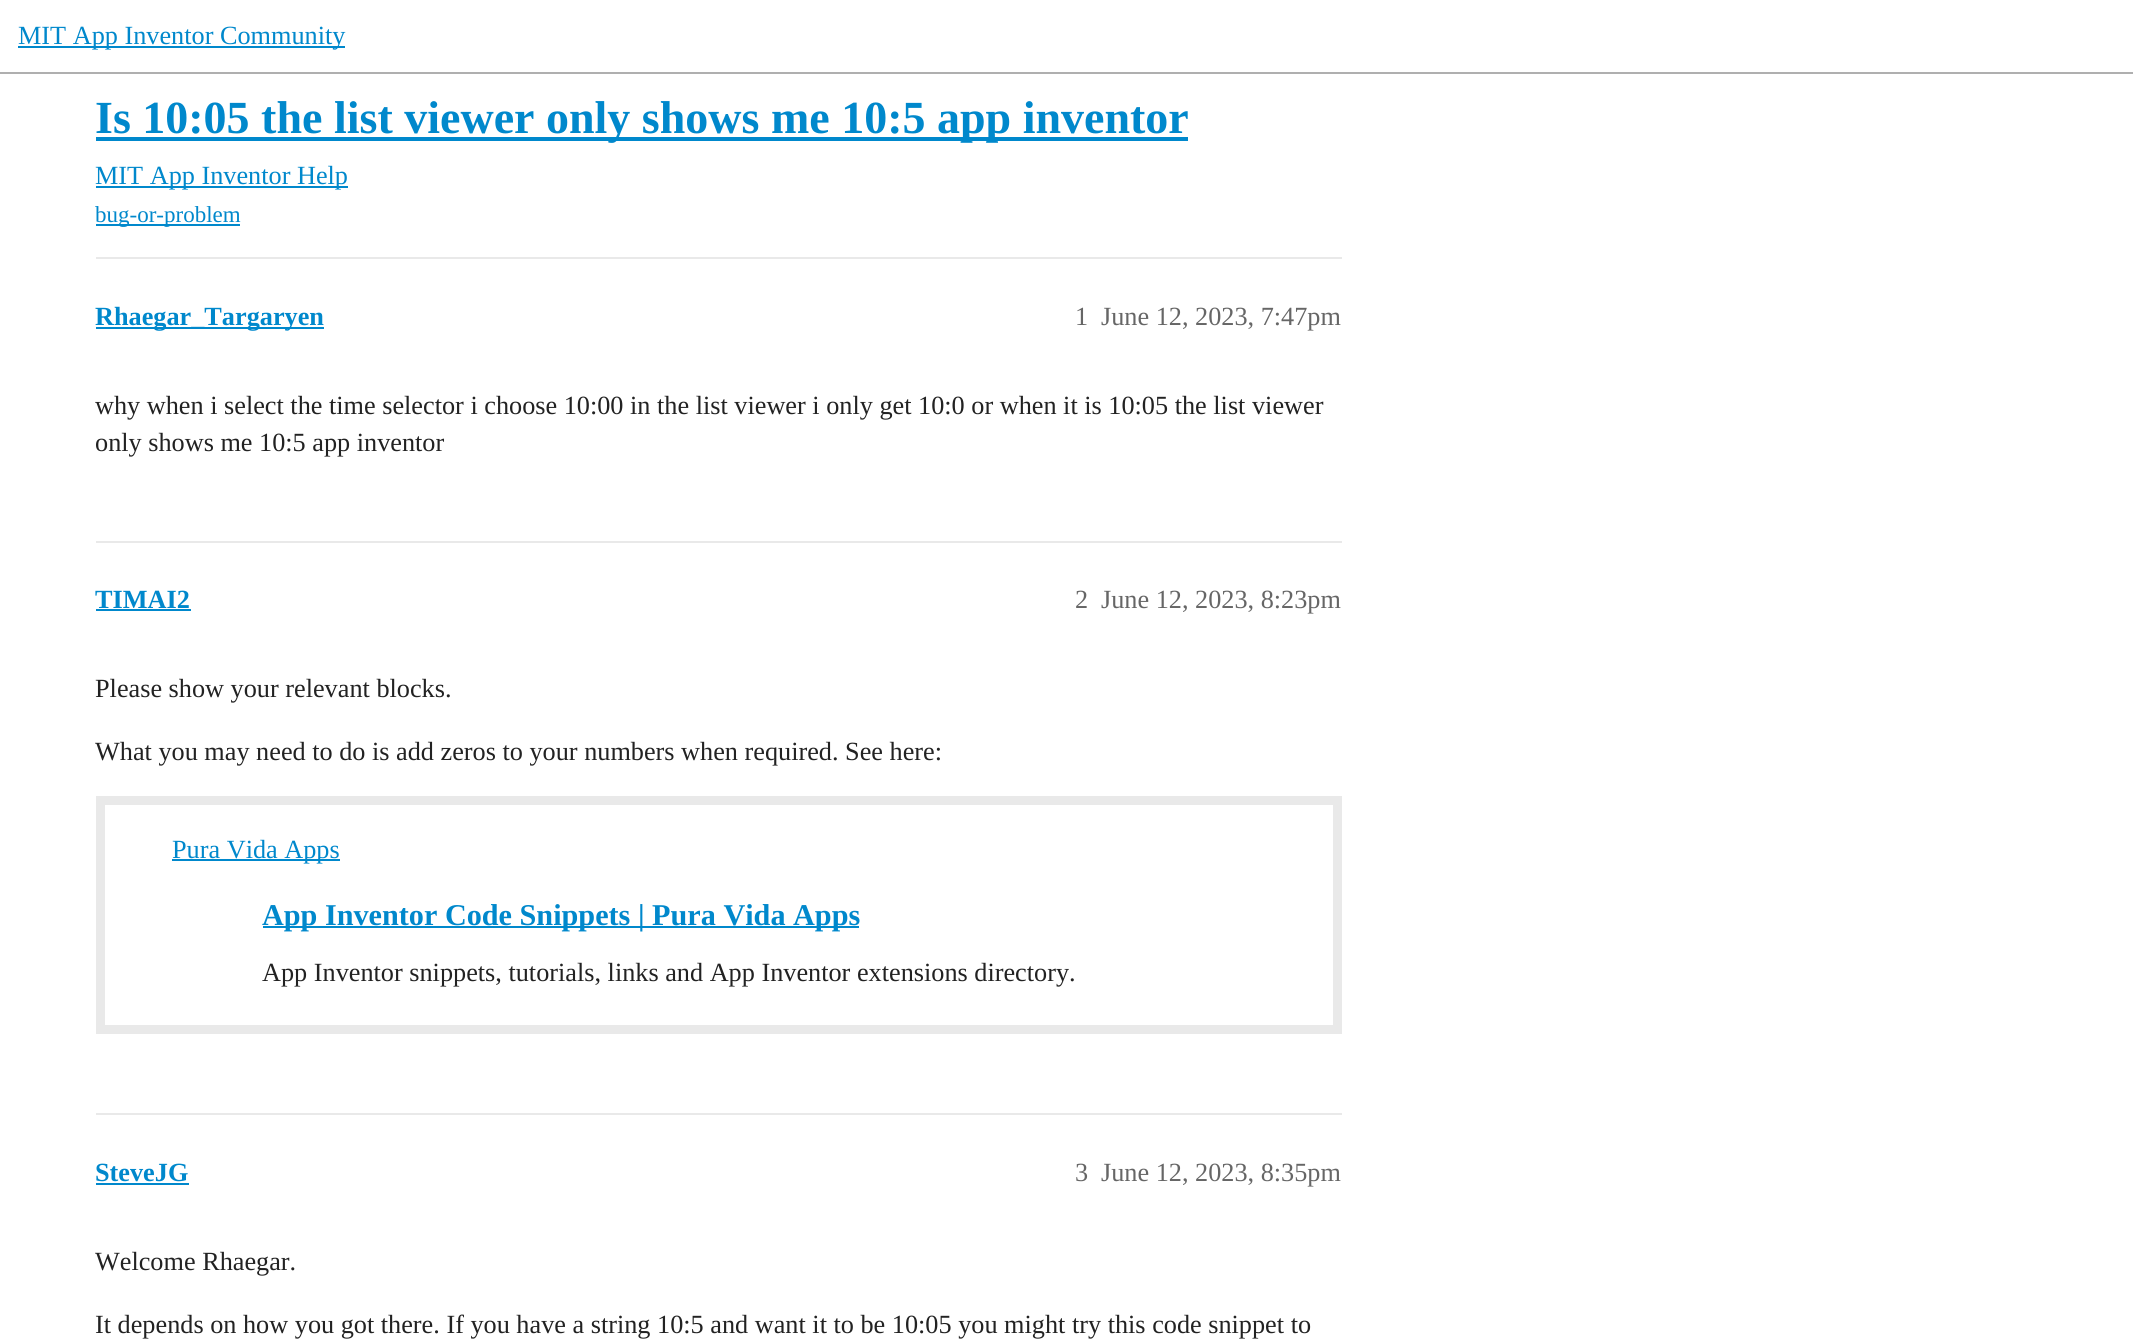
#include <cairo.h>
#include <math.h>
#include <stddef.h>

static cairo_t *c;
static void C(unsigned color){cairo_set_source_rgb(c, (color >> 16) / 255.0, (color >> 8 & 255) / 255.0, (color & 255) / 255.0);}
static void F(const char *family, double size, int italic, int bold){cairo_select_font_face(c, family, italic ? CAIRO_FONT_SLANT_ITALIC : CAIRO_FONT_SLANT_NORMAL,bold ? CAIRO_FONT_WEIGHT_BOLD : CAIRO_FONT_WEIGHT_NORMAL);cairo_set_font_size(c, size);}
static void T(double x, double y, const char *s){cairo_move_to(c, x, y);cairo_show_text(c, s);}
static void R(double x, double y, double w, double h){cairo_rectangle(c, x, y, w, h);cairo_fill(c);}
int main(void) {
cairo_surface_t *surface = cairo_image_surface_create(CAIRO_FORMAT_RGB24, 2133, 1341);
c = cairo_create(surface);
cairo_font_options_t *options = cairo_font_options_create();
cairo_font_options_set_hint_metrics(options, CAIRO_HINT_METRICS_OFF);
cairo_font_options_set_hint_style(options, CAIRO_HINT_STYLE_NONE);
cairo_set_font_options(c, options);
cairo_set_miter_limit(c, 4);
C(0xffffff);
cairo_paint(c);
C(0xafafaf);
R(0,72,2133,2);
C(0x0088cc);
R(18,46,327,2);
F("Liberation Serif",26.25,0,0);
T(18,44,"MIT App Inventor Community");
R(96,137,1092,4);
F("Liberation Serif",46,0,1);
T(95,133,"Is 10:05 the list viewer only shows me 10:5 app inventor");
R(96,186,252,2);
F("Liberation Serif",26.25,0,0);
T(95,184,"MIT App Inventor Help");
R(96,224,144,2);
F("Liberation Serif",23,0,0);
T(95,222,"bug-or-problem");
C(0xe9e9e9);
R(96,257,1246,2);
C(0x0088cc);
R(96,327,228,2);
F("Liberation Serif",26.25,0,1);
T(95,325,"Rhaegar_Targaryen");
F("Liberation Serif",26.25,0,0);
C(0x666666);
T(1075,325,"1");
T(1101,325,"June 12, 2023, 7:47pm");
C(0x222222);
T(95,414,"why when i select the time selector i choose 10:00 in the list viewer i only get 10:0 or when it is 10:05 the list viewer");
T(95,451,"only shows me 10:5 app inventor");
C(0xe9e9e9);
R(96,541,1246,2);
F("Liberation Serif",26.25,0,1);
C(0x0088cc);
T(95,608,"TIMAI2");
R(96,609,95,2);
F("Liberation Serif",26.25,0,0);
C(0x666666);
T(1075,608,"2");
T(1101,608,"June 12, 2023, 8:23pm");
C(0x222222);
T(95,697,"Please show your relevant blocks.");
T(95,760,"What you may need to do is add zeros to your numbers when required. See here:");
cairo_rectangle(c,100.5,800.5,1237,229);
C(0xe9e9e9);
cairo_set_line_width(c,9);
cairo_stroke(c);
C(0x0088cc);
R(172,859,168,2);
T(172,858,"Pura Vida Apps");
R(263,926,596,2);
F("Liberation Serif",30.2,0,1);
T(262,925,"App Inventor Code Snippets | Pura Vida Apps");
F("Liberation Serif",26.25,0,0);
C(0x222222);
T(262,981,"App Inventor snippets, tutorials, links and App Inventor extensions directory.");
C(0xe9e9e9);
R(96,1113,1246,2);
F("Liberation Serif",26.25,0,1);
C(0x0088cc);
T(95,1181,"SteveJG");
R(96,1183,93,2);
F("Liberation Serif",26.25,0,0);
C(0x666666);
T(1075,1181,"3");
T(1101,1181,"June 12, 2023, 8:35pm");
C(0x222222);
T(95,1270,"Welcome Rhaegar.");
T(95,1333,"It depends on how you got there. If you have a string 10:5 and want it to be 10:05 you might try this code snippet to");
cairo_surface_write_to_png(surface, "o.png");
cairo_font_options_destroy(options);
cairo_destroy(c);
cairo_surface_destroy(surface);
return 0;
}
